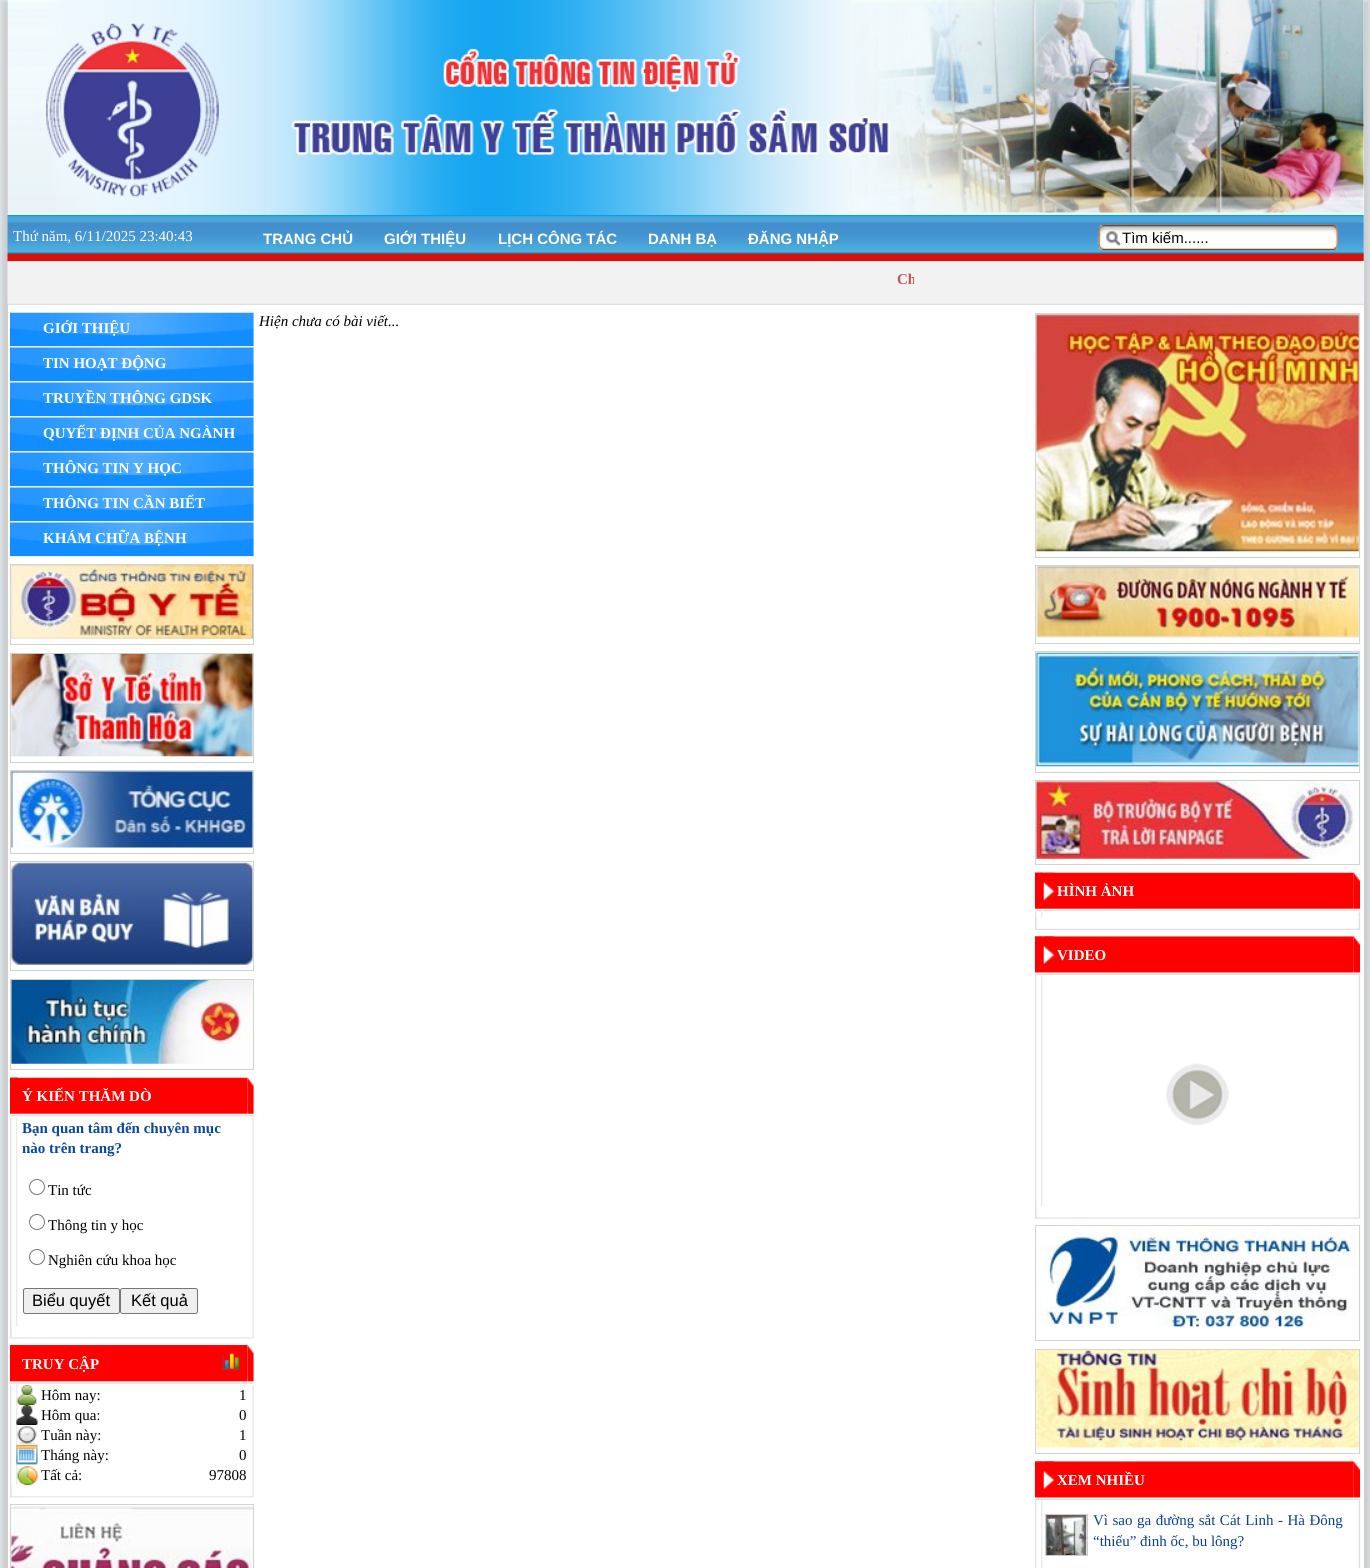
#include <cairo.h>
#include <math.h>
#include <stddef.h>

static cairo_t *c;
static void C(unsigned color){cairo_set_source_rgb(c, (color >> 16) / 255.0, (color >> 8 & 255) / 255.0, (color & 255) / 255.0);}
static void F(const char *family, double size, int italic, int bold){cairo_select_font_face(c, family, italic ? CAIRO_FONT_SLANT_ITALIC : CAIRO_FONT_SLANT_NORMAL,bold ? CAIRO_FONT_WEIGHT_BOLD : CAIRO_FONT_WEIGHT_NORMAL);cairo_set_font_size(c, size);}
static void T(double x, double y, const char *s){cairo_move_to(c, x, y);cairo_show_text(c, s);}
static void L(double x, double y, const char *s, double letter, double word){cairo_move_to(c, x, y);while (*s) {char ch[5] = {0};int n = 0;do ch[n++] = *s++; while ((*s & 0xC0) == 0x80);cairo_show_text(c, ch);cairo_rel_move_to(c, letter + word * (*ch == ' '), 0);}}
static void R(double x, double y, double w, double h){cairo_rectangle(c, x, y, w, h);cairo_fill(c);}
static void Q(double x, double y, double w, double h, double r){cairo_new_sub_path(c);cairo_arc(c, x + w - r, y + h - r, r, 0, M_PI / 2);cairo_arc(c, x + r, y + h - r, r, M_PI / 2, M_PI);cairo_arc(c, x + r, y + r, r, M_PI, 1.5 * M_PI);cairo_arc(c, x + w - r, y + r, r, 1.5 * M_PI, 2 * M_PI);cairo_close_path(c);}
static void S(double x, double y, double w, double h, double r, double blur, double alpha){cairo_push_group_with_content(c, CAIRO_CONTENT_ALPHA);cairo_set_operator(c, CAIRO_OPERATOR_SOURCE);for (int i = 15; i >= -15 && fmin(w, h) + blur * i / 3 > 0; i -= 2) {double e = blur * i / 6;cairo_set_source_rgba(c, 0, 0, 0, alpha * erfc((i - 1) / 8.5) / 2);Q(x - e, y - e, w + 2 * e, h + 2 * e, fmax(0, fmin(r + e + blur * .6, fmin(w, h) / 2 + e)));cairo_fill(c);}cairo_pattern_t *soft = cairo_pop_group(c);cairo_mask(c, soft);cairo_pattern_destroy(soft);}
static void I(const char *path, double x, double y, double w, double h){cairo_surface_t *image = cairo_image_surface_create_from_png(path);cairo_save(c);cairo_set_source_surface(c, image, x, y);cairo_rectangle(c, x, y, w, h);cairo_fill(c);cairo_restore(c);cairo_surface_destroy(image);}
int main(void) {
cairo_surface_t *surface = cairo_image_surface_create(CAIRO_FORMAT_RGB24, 1370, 1568);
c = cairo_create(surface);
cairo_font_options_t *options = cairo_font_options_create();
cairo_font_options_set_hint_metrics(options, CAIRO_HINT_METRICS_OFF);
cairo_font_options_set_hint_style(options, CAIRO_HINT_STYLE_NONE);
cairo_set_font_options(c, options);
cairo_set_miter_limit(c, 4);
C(0xe0f3fc);
cairo_paint(c);
C(0xcccccc);
S(1,0,1369,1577,0,3,1);
C(0xffffff);
R(8,0,1356,1568);
I("1.png",7,0,1357,215);
I("2.png",7,215,1357,47);
F("Liberation Serif",15,0,0);
T(13,241,"Thứ năm, 6/11/2025 23:40:43");
F("Liberation Sans",15,0,1);
T(263,244,"TRANG CHỦ");
T(384,244,"GIỚI THIỆU");
T(498,244,"LỊCH CÔNG TÁC");
T(648,244,"DANH BẠ");
T(748,244,"ĐĂNG NHẬP");
I("3.png",1097,225,242,25);
F("Liberation Sans",15,0,0);
C(0x000000);
T(1122,243,"Tìm kiếm......");
I("4.png",7,261,1357,44);
cairo_save(c);
cairo_rectangle(c,8,270,906,19);
cairo_clip(c);
F("Liberation Serif",15,0,1);
C(0xc35656);
T(897,284,"Ch");
cairo_restore(c);
I("5.png",10,312,244,34);
C(0xeeeeee);
R(10,346,244,1);
F("Liberation Serif",15,0,1);
C(0xffffff);
T(43,333,"GIỚI THIỆU");
I("6.png",10,347,244,34);
C(0xeeeeee);
R(10,381,244,1);
C(0xffffff);
T(43,368,"TIN HOẠT ĐỘNG");
I("6.png",10,382,244,34);
C(0xeeeeee);
R(10,416,244,1);
C(0xffffff);
T(43,403,"TRUYỀN THÔNG GDSK");
I("6.png",10,417,244,34);
C(0xeeeeee);
R(10,451,244,1);
C(0xffffff);
T(43,438,"QUYẾT ĐỊNH CỦA NGÀNH");
I("6.png",10,452,244,34);
C(0xeeeeee);
R(10,486,244,1);
C(0xffffff);
T(43,473,"THÔNG TIN Y HỌC");
I("6.png",10,487,244,34);
C(0xeeeeee);
R(10,521,244,1);
C(0xffffff);
T(43,508,"THÔNG TIN CẦN BIẾT");
I("6.png",10,522,244,34);
C(0xeeeeee);
R(10,556,244,1);
C(0xffffff);
T(43,543,"KHÁM CHỮA BỆNH");
cairo_rectangle(c,10.5,564.5,243,80);
C(0xd0d5ce);
cairo_set_line_width(c,1);
cairo_stroke(c);
I("7.png",11,565,242,74);
cairo_rectangle(c,10.5,653.5,243,109);
cairo_stroke(c);
I("8.png",11,653,242,104);
cairo_rectangle(c,10.5,770.5,243,83);
cairo_stroke(c);
I("9.png",11,771,242,77);
cairo_rectangle(c,10.5,861.5,243,109);
cairo_stroke(c);
I("10.png",11,862,242,103);
cairo_rectangle(c,10.5,979.5,243,90);
cairo_stroke(c);
I("11.png",11,980,242,84);
I("12.png",10,1077,8,40);
I("13.png",247,1077,7,40);
I("14.png",16,1077,232,40);
C(0xffffff);
T(22,1101,"Ý KIẾN THĂM DÒ");
I("15.png",10,1117,8,210);
I("16.png",252,1117,2,210);
C(0x0b4898);
T(22,1133,"Bạn quan tâm đến chuyên mục");
T(22,1153,"nào trên trang?");
cairo_new_path(c);
cairo_arc(c,37,1187,7.5,0,2 * M_PI);
C(0x767676);
cairo_stroke(c);
F("Liberation Serif",15,0,0);
C(0x000000);
T(48,1195,"Tin tức");
cairo_new_path(c);
cairo_arc(c,37,1222,7.5,0,2 * M_PI);
C(0x767676);
cairo_stroke(c);
C(0x000000);
T(48,1230,"Thông tin y học");
cairo_new_path(c);
cairo_arc(c,37,1257,7.5,0,2 * M_PI);
C(0x767676);
cairo_stroke(c);
C(0x000000);
T(48,1265,"Nghiên cứu khoa học");
C(0xefefef);
Q(23.5,1288.5,96,25,2);
cairo_fill_preserve(c);
C(0x767676);
cairo_stroke(c);
F("Liberation Sans",16.5,0,0);
C(0x000000);
T(32,1306,"Biểu quyết");
C(0xefefef);
Q(120.5,1288.5,77,25,2);
cairo_fill_preserve(c);
C(0x767676);
cairo_stroke(c);
C(0x000000);
T(131,1306,"Kết quả");
I("17.png",10,1326,8,13);
I("18.png",247,1326,7,13);
I("19.png",17,1337,231,2);
I("20.png",10,1345,8,39);
I("21.png",247,1345,7,39);
I("22.png",17,1345,231,39);
F("Liberation Serif",15,0,1);
C(0xffffff);
T(22,1369,"TRUY CẬP");
I("23.png",221,1352,20,20);
I("24.png",10,1385,8,100);
I("25.png",252,1385,2,100);
I("26.png",17,1385,20,20);
F("Liberation Serif",15,0,0);
C(0x000000);
T(41,1400,"Hôm nay:");
T(239,1400,"1");
I("27.png",16,1405,22,20);
T(41,1420,"Hôm qua:");
T(239,1420,"0");
I("28.png",17,1426,20,19);
T(41,1440,"Tuần này:");
T(239,1440,"1");
I("29.png",16,1445,22,20);
T(41,1460,"Tháng này:");
T(239,1460,"0");
I("30.png",17,1466,21,19);
T(41,1480,"Tất cả:");
T(209,1480,"97808");
I("31.png",10,1485,8,13);
I("32.png",247,1485,7,13);
I("33.png",17,1496,231,2);
cairo_rectangle(c,10.5,1504.5,243,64);
C(0xd0d5ce);
cairo_stroke(c);
I("34.png",11,1506,242,62);
F("Liberation Serif",15,1,0);
C(0x000000);
T(259,326,"Hiện chưa có bài viết...");
cairo_rectangle(c,1035.5,313.5,324,244);
C(0xd0d5ce);
cairo_stroke(c);
I("35.png",1036,314,323,238);
cairo_rectangle(c,1035.5,565.5,324,78);
cairo_stroke(c);
I("36.png",1036,566,323,72);
cairo_rectangle(c,1035.5,651.5,324,121);
cairo_stroke(c);
I("37.png",1036,652,323,115);
cairo_rectangle(c,1035.5,780.5,324,84);
cairo_stroke(c);
I("38.png",1036,781,321,78);
I("43.png",1035,911,8,7);
I("39.png",1035,872,8,40);
I("40.png",1353,872,7,39);
I("41.png",1041,872,313,39);
I("42.png",1043,872,11,29);
F("Liberation Serif",15,0,1);
C(0xffffff);
T(1057,896,"HÌNH ẢNH");
I("44.png",1358,911,2,7);
I("45.png",1035,917,8,13);
I("46.png",1353,918,7,12);
I("47.png",1042,928,312,2);
I("48.png",1035,936,8,39);
I("49.png",1353,936,7,39);
I("50.png",1041,936,313,39);
I("51.png",1043,936,11,28);
T(1057,960,"VIDEO");
I("52.png",1035,975,8,232);
I("53.png",1358,975,2,232);
I("54.png",1166,1063,63,62);
I("17.png",1035,1206,8,13);
I("55.png",1353,1206,7,13);
I("56.png",1042,1217,312,2);
cairo_rectangle(c,1035.5,1225.5,324,115);
C(0xd0d5ce);
cairo_stroke(c);
I("57.png",1036,1226,321,102);
cairo_rectangle(c,1035.5,1349.5,324,104);
cairo_stroke(c);
I("58.png",1036,1350,323,98);
I("48.png",1035,1461,8,39);
I("49.png",1353,1461,7,39);
I("50.png",1041,1461,313,39);
I("51.png",1043,1461,11,28);
C(0xffffff);
T(1057,1485,"XEM NHIỀU");
I("59.png",1035,1500,8,68);
I("60.png",1358,1500,2,68);
cairo_rectangle(c,1045.5,1514.5,42,41);
C(0xcccccc);
cairo_stroke(c);
I("61.png",1046,1515,41,40);
F("Liberation Serif",15,0,0);
C(0x0b4090);
L(1093,1525,"Vì sao ga đường sắt Cát Linh - Hà Đông",0,.75);
T(1093,1546,"“thiếu” đinh ốc, bu lông?");
cairo_surface_write_to_png(surface, "o.png");
cairo_font_options_destroy(options);
cairo_destroy(c);
cairo_surface_destroy(surface);
return 0;
}
